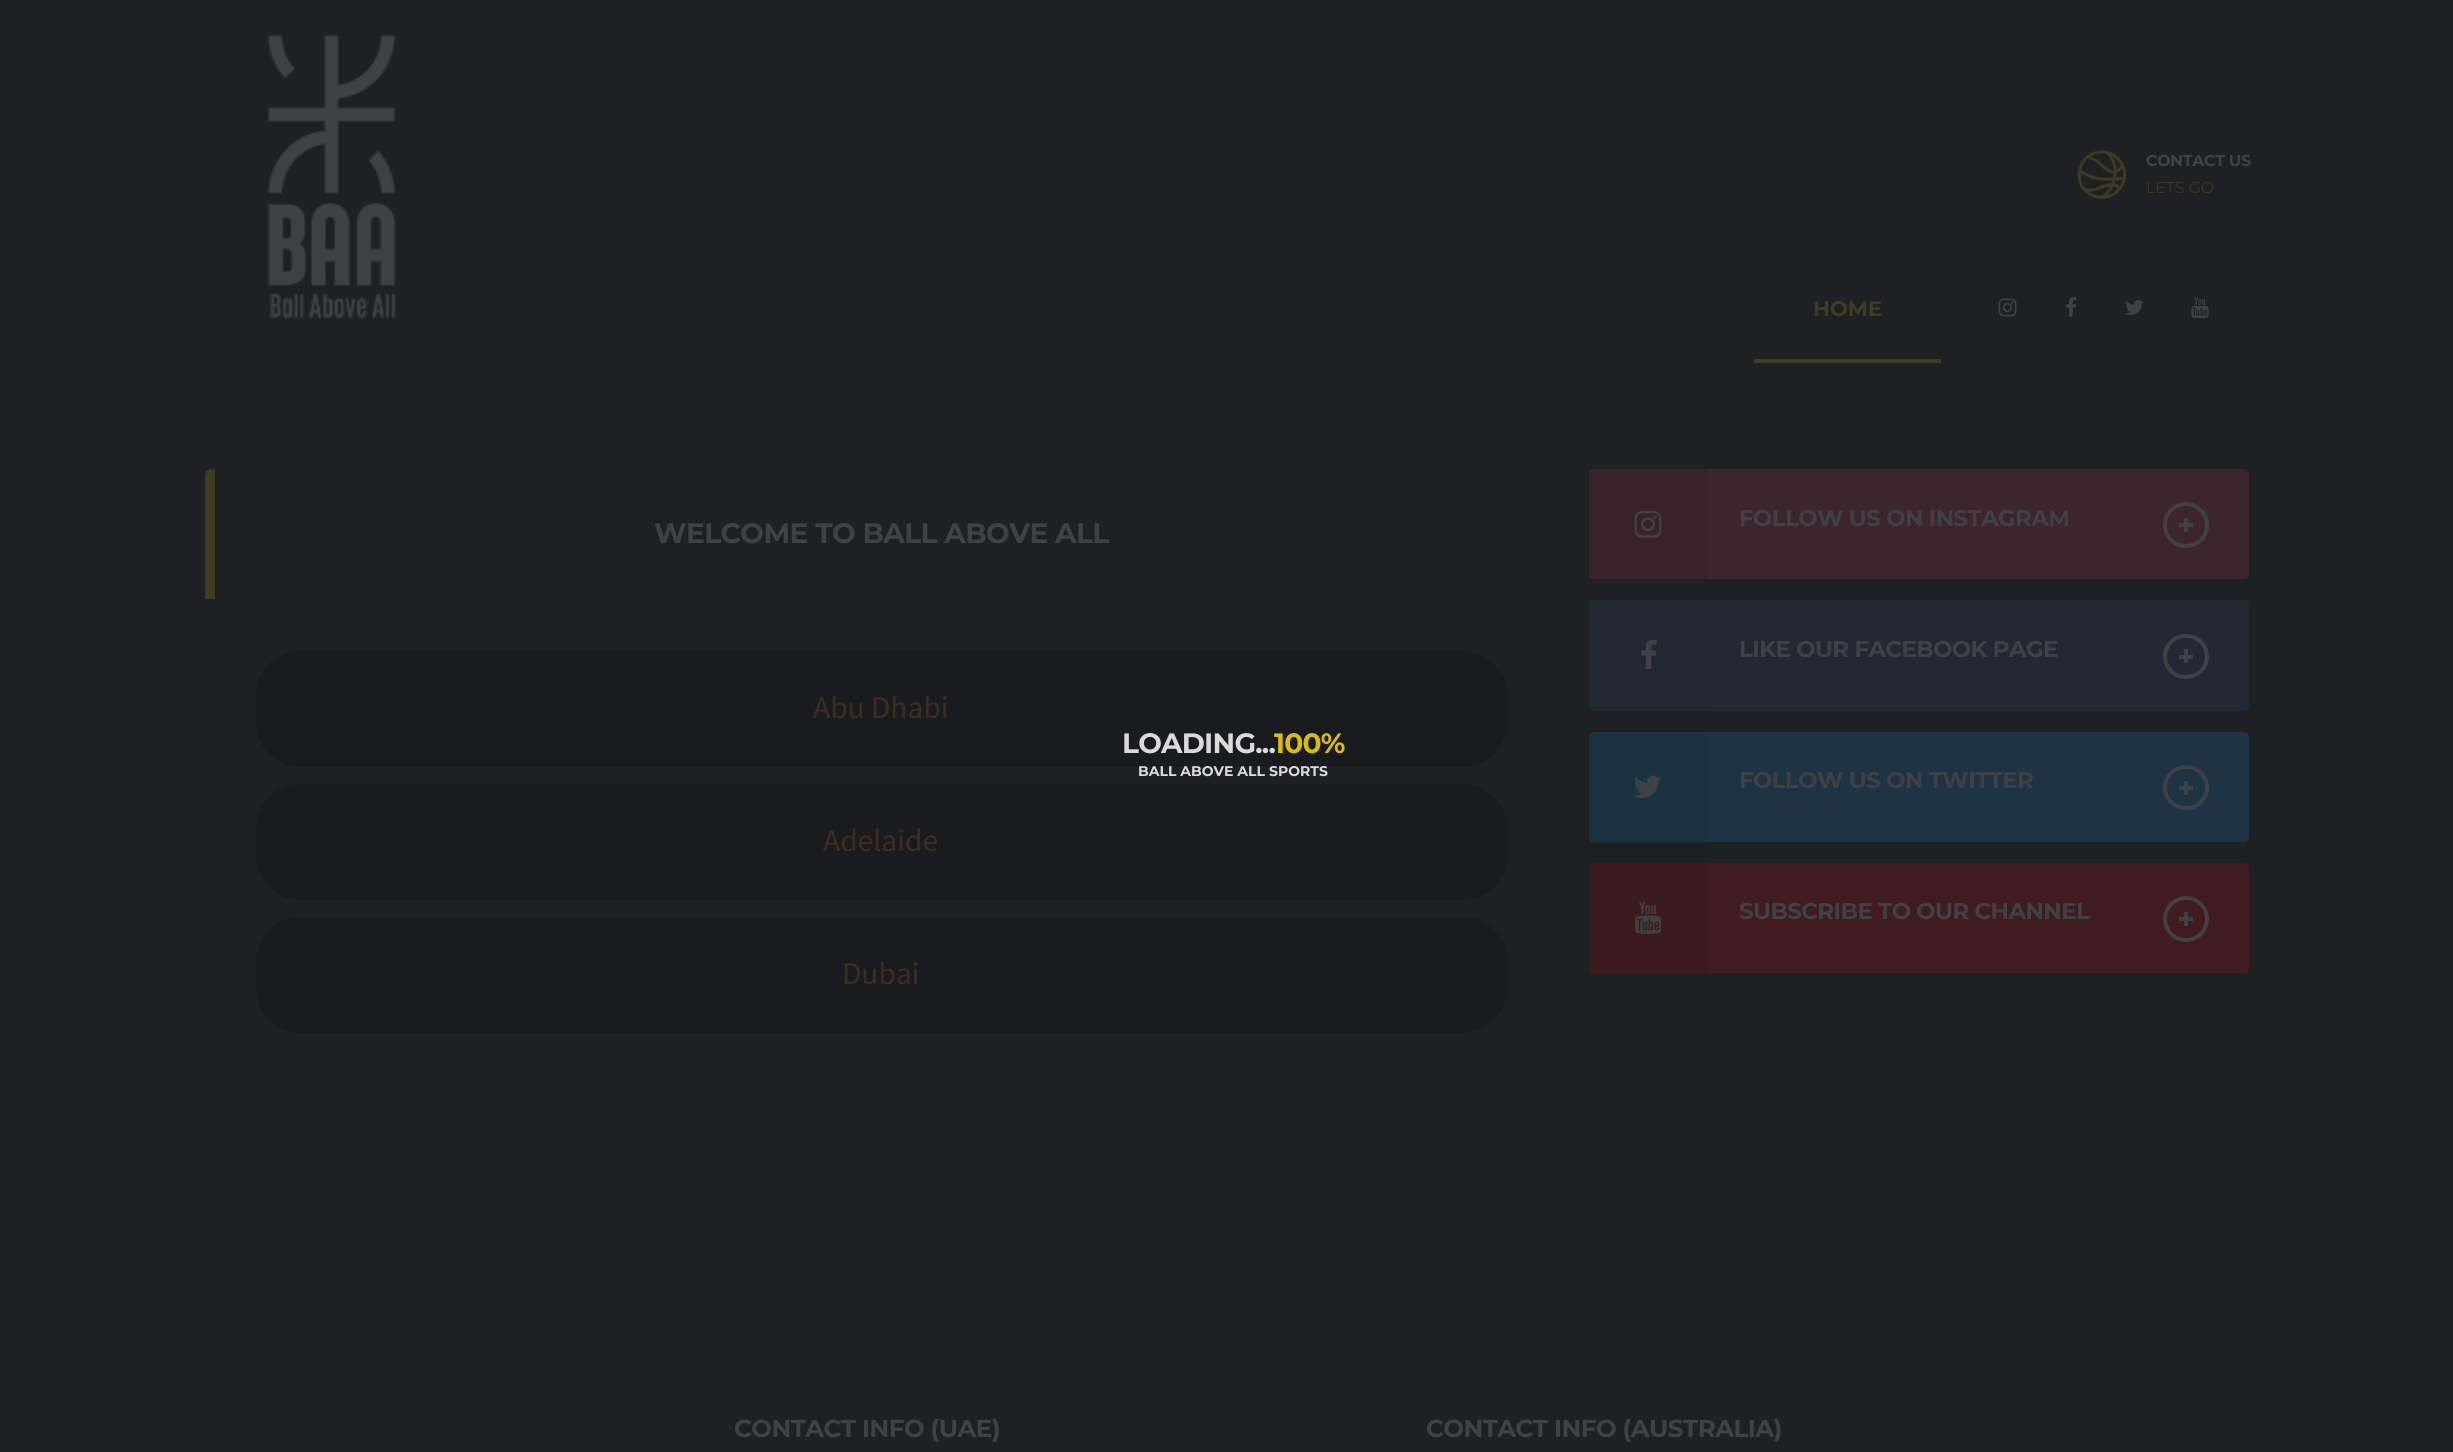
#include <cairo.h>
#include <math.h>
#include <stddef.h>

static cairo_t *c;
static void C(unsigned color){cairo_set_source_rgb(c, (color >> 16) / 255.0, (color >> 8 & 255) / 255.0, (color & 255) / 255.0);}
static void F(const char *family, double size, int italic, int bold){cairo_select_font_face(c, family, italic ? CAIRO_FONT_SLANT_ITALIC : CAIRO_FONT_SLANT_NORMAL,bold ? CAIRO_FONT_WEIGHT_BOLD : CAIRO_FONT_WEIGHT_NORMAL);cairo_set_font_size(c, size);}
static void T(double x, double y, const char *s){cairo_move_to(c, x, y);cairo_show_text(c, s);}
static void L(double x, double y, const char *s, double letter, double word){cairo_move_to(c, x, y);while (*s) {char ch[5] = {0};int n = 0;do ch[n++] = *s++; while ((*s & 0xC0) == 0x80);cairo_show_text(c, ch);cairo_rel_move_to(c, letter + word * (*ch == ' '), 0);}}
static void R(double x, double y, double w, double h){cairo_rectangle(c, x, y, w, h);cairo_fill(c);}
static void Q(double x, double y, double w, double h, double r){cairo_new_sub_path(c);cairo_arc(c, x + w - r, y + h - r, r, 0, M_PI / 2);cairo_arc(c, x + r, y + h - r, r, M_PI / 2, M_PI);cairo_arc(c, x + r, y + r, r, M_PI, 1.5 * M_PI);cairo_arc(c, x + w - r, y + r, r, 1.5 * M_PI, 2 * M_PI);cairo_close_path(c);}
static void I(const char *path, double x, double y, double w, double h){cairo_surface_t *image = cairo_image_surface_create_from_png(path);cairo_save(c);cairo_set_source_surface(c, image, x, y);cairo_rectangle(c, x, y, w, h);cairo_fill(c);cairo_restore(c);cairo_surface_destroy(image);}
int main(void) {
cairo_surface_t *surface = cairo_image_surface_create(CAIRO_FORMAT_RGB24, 2453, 1452);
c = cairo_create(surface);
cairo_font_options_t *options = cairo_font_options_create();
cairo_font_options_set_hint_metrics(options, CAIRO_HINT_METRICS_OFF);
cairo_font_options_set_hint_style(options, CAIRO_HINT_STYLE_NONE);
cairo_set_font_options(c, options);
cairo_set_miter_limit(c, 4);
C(0x1e2024);
cairo_paint(c);
I("1.png",2077,150,50,50);
F("Montserrat",15.75,0,1);
C(0x404145);
L(2146,166,"CONTACT US",-.25,0);
F("Montserrat",15.75,0,0);
C(0x40341f);
T(2146,193,"LETS GO");
I("2.png",267,34,129,285);
F("Montserrat",21,0,1);
C(0x403c21);
T(1813,316,"HOME");
R(1754,359,187,4);
I("3.png",1998,298,19,19);
I("4.png",2066,297,11,20);
I("5.png",2125,300,19,15);
I("6.png",2191,297,18,21);
cairo_new_path(c);
cairo_move_to(c,212,469);
cairo_line_to(c,215,469);
cairo_line_to(c,215,599);
cairo_line_to(c,205,599);
cairo_line_to(c,205,476);
cairo_curve_to(c,205,472,208,469,212,469);
cairo_close_path(c);
cairo_fill(c);
F("Montserrat",28,0,1);
C(0x404145);
L(654,543,"WELCOME TO BALL ABOVE ALL",-.55,0);
C(0x1a1b1f);
Q(256,651,1251,116,44);
cairo_fill(c);
F("Source Sans Pro",31.5,0,0);
C(0x3e2c24);
T(813,718,"Abu Dhabi");
C(0x1a1b1f);
Q(256,784,1251,116,44);
cairo_fill(c);
C(0x3e2c24);
T(823,851,"Adelaide");
C(0x1a1b1f);
Q(256,917,1251,116,44);
cairo_fill(c);
C(0x3e2c24);
T(842,984,"Dubai");
C(0x3c252d);
Q(1589,469,660,110,5);
cairo_fill(c);
C(0x3b222a);
cairo_new_path(c);
cairo_move_to(c,1594,469);
cairo_line_to(c,1708,469);
cairo_line_to(c,1708,579);
cairo_line_to(c,1594,579);
cairo_curve_to(c,1591,579,1589,577,1589,574);
cairo_line_to(c,1589,474);
cairo_curve_to(c,1589,471,1591,469,1594,469);
cairo_close_path(c);
cairo_fill(c);
I("7.png",1634,510,28,28);
F("Montserrat",22.75,0,1);
C(0x404145);
L(1739,526,"FOLLOW US ON INSTAGRAM",-.5,0);
cairo_new_path(c);
cairo_arc(c,2186,525,21,0,2 * M_PI);
cairo_set_line_width(c,4);
cairo_stroke(c);
R(2179,523,14,4);
R(2184,518,4,14);
C(0x222935);
Q(1589,600,660,111,5);
cairo_fill(c);
C(0x212733);
cairo_new_path(c);
cairo_move_to(c,1594,600);
cairo_line_to(c,1708,600);
cairo_line_to(c,1708,711);
cairo_line_to(c,1594,711);
cairo_curve_to(c,1591,711,1589,709,1589,706);
cairo_line_to(c,1589,605);
cairo_curve_to(c,1589,602,1591,600,1594,600);
cairo_close_path(c);
cairo_fill(c);
I("8.png",1641,639,16,30);
C(0x404145);
L(1739,657,"LIKE OUR FACEBOOK PAGE",-.5,0);
Q(2165,636,42,41,20.5);
cairo_stroke(c);
R(2179,655,14,4);
R(2184,649,4,14);
C(0x1e3343);
Q(1589,732,660,110,5);
cairo_fill(c);
C(0x1b3241);
cairo_new_path(c);
cairo_move_to(c,1594,732);
cairo_line_to(c,1708,732);
cairo_line_to(c,1708,842);
cairo_line_to(c,1594,842);
cairo_curve_to(c,1591,842,1589,840,1589,837);
cairo_line_to(c,1589,737);
cairo_curve_to(c,1589,734,1591,732,1594,732);
cairo_close_path(c);
cairo_fill(c);
I("9.png",1633,775,29,23);
C(0x404145);
L(1739,788,"FOLLOW US ON TWITTER",-.5,0);
Q(2165,767,42,41,20.5);
cairo_stroke(c);
R(2179,786,14,4);
R(2184,781,4,14);
C(0x401b1f);
Q(1589,863,660,110,5);
cairo_fill(c);
C(0x3c1b1f);
cairo_new_path(c);
cairo_move_to(c,1594,863);
cairo_line_to(c,1708,863);
cairo_line_to(c,1708,973);
cairo_line_to(c,1594,973);
cairo_curve_to(c,1591,973,1589,971,1589,968);
cairo_line_to(c,1589,868);
cairo_curve_to(c,1589,865,1591,863,1594,863);
cairo_close_path(c);
cairo_fill(c);
I("10.png",1635,902,26,32);
C(0x404145);
L(1739,919,"SUBSCRIBE TO OUR CHANNEL",-.5,0);
cairo_new_path(c);
cairo_arc(c,2186,919,21,0,2 * M_PI);
cairo_stroke(c);
R(2179,917,14,4);
R(2184,912,4,14);
F("Montserrat",24.5,0,1);
L(734,1437,"CONTACT INFO (UAE)",-.5,0);
L(1426,1437,"CONTACT INFO (AUSTRALIA)",-.5,0);
F("Montserrat",28,0,1);
C(0xdadada);
L(1122,753,"LOADING...",-.75,0);
C(0xdabc0f);
L(1274,753,"100%",-.75,0);
F("Montserrat",14,0,1);
C(0xdadada);
T(1138,776,"BALL ABOVE ALL SPORTS");
cairo_surface_write_to_png(surface, "o.png");
cairo_font_options_destroy(options);
cairo_destroy(c);
cairo_surface_destroy(surface);
return 0;
}
